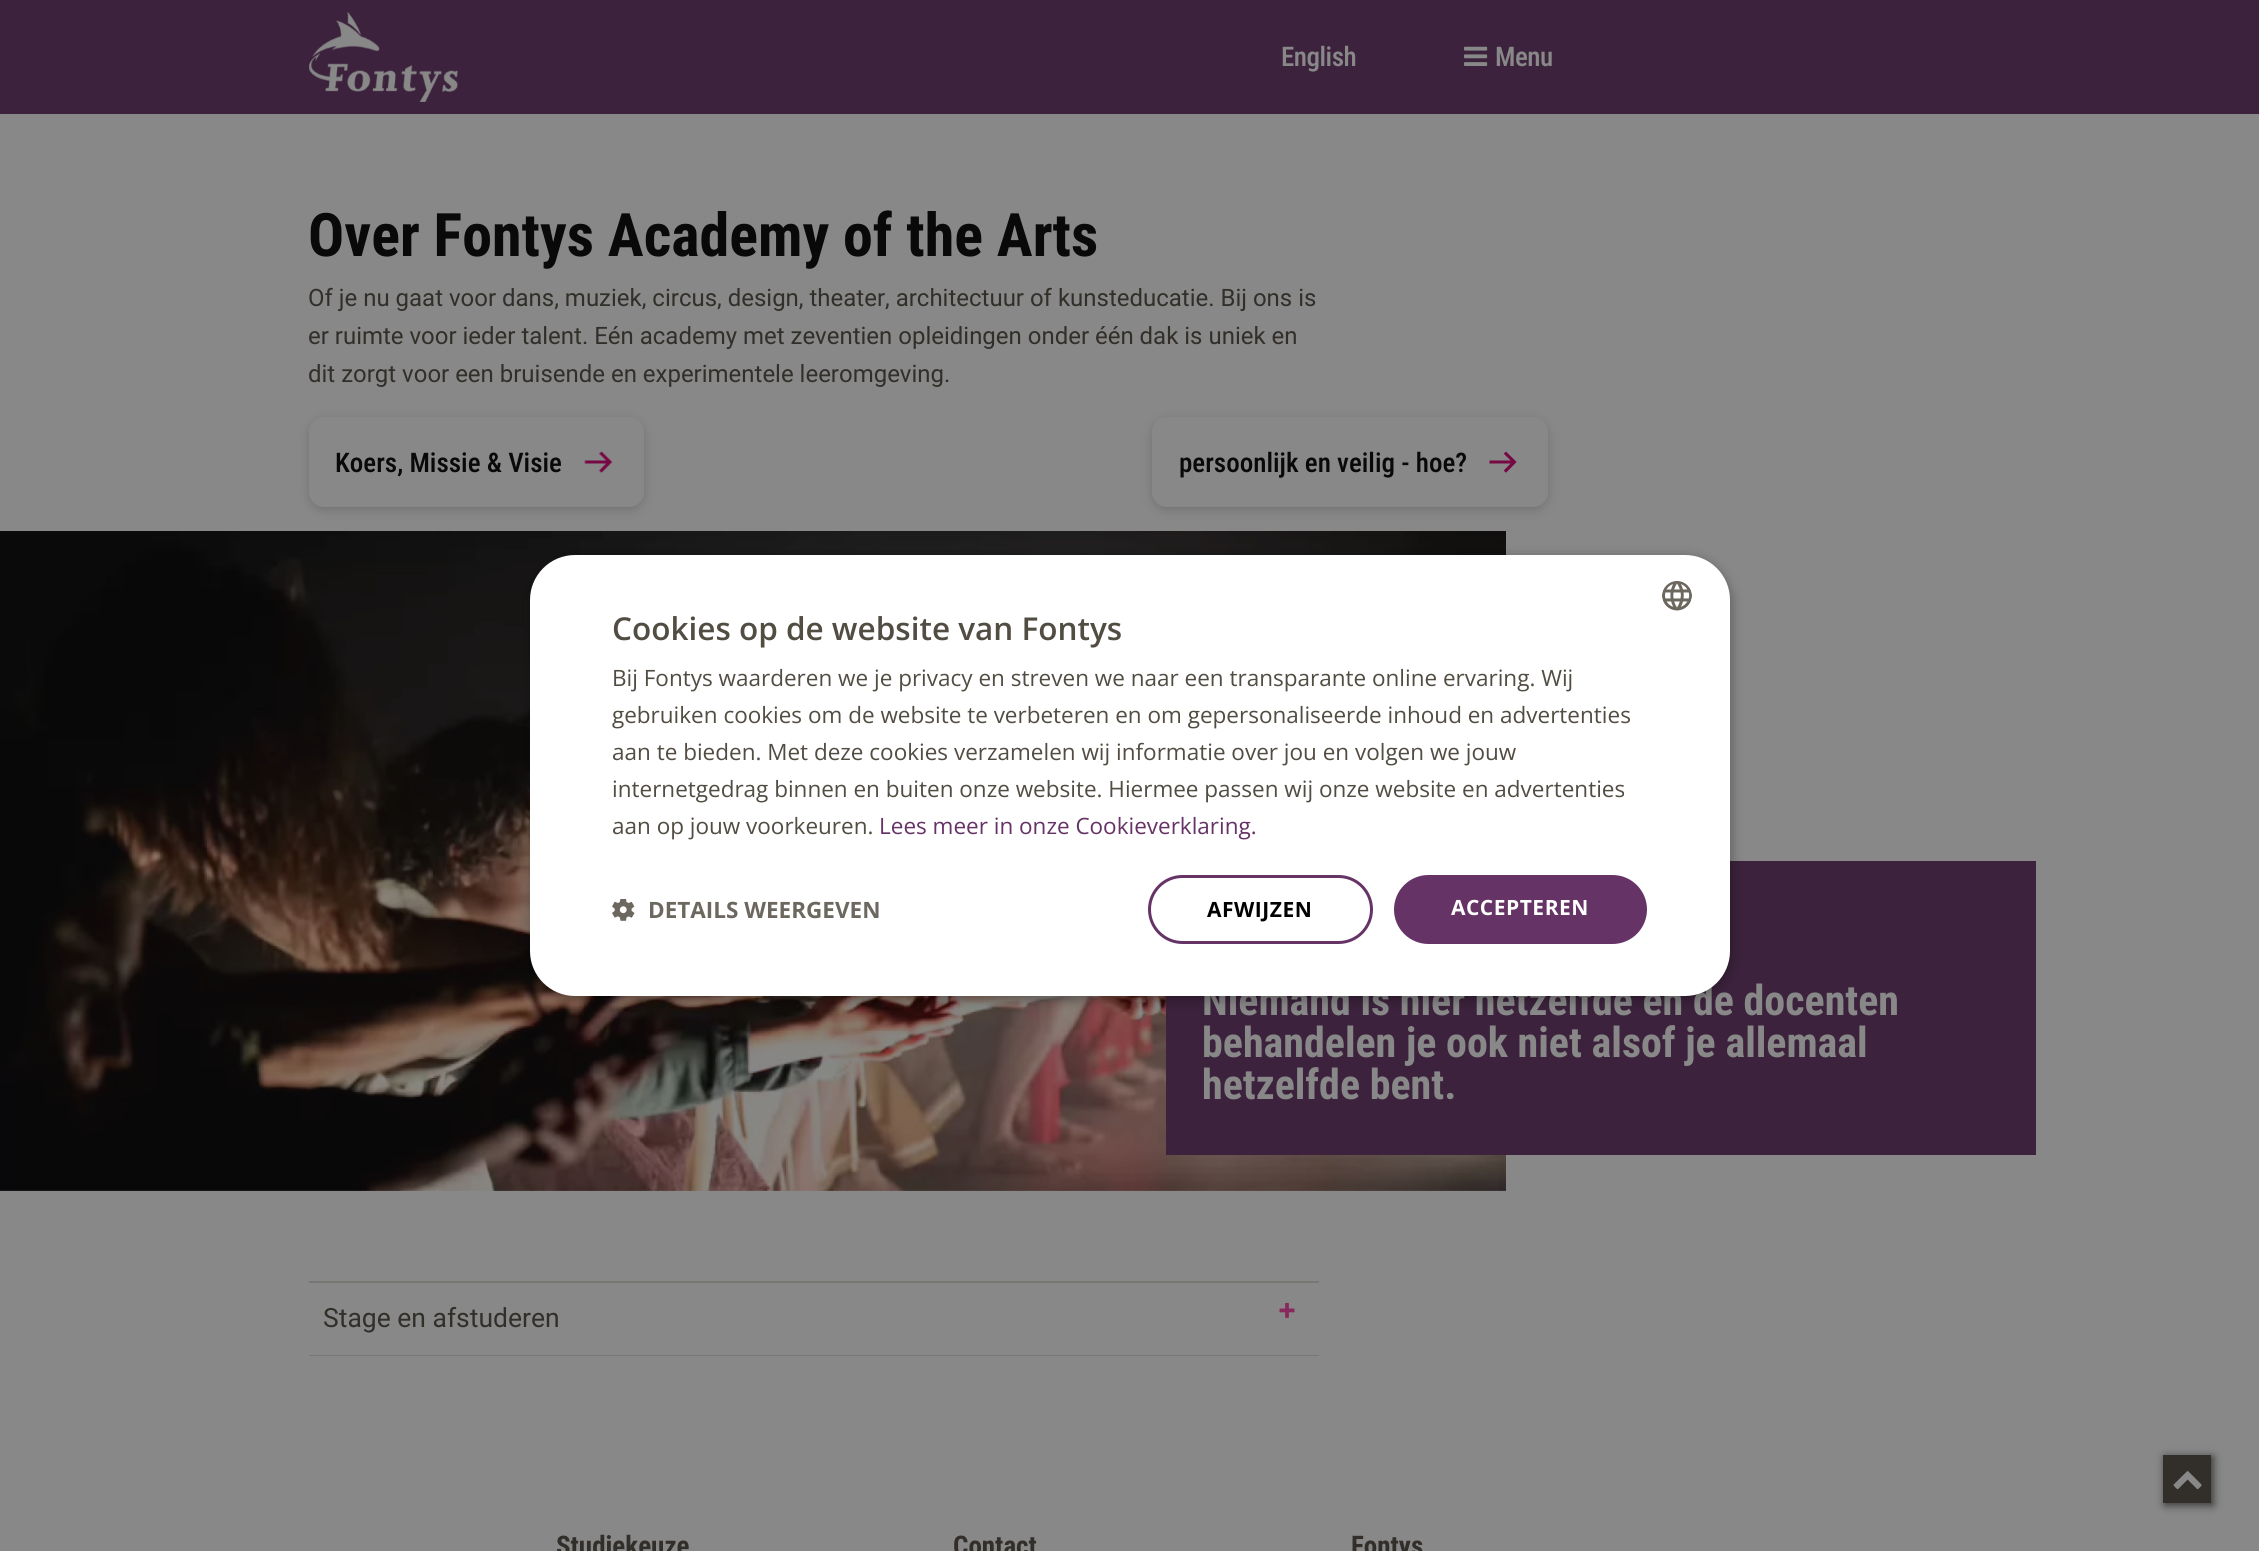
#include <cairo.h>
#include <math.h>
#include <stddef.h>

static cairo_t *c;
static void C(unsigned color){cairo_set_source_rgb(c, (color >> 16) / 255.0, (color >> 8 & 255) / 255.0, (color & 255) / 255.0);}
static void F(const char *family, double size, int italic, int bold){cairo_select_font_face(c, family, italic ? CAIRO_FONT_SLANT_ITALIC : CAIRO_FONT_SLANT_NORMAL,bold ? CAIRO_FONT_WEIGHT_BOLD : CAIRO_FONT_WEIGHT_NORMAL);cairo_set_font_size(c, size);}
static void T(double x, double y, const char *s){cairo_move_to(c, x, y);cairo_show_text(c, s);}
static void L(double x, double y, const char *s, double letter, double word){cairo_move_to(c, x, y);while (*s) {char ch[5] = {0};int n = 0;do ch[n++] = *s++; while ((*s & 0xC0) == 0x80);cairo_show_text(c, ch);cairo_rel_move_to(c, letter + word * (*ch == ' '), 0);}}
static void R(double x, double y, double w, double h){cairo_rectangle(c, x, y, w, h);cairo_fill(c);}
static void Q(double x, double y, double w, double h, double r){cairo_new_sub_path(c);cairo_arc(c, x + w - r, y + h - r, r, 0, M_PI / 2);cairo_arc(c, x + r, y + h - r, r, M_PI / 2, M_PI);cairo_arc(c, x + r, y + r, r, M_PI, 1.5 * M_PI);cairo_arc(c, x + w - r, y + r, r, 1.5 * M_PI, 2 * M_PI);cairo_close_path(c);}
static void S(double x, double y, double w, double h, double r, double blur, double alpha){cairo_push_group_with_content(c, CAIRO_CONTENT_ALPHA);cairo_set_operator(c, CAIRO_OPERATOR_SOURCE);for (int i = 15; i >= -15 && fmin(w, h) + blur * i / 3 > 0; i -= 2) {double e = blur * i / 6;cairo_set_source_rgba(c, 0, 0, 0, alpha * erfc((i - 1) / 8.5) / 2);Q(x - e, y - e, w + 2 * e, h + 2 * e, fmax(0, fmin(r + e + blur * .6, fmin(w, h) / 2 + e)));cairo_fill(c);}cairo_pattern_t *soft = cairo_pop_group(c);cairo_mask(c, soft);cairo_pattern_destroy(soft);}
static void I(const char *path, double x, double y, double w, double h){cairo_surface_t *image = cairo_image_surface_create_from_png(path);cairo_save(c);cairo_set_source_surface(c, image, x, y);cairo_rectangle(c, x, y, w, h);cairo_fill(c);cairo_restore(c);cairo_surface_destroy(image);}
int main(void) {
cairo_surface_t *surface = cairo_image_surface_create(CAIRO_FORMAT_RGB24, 2259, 1551);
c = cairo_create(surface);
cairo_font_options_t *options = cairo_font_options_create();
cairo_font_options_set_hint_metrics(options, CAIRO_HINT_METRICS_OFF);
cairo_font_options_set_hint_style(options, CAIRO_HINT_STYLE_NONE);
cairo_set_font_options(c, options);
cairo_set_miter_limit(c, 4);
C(0x888888);
cairo_paint(c);
C(0x3c223c);
R(0,0,2259,114);
I("1.png",309,12,149,90);
F("Roboto Condensed Medium",27,0,0);
C(0x888888);
L(1281,66,"English",-.5,0);
I("2.png",1464,46,24,20);
L(1495,66,"Menu",-.5,0);
F("Roboto Condensed",60,0,1);
C(0x090909);
T(308,256,"Over Fontys Academy of the Arts");
F("Roboto",24,0,0);
C(0x322f2a);
T(308,306,"Of je nu gaat voor dans, muziek, circus, design, theater, architectuur of kunsteducatie. Bij ons is");
T(308,344,"er ruimte voor ieder talent. Eén academy met zeventien opleidingen onder één dak is uniek en");
T(308,382,"dit zorgt voor een bruisende en experimentele leeromgeving.");
C(0x090909);
S(309,420,335,90,15,5,.18);
C(0x888888);
Q(310.5,418.5,332,87,13.5);
cairo_fill_preserve(c);
cairo_set_line_width(c,3);
cairo_stroke(c);
F("Roboto Condensed Medium",27,0,0);
C(0x090909);
T(335,472,"Koers, Missie & Visie");
I("3.png",584,451,29,22);
C(0x090909);
S(1152,420,396,90,15,5,.18);
C(0x888888);
Q(1153.5,418.5,393,87,13.5);
cairo_fill_preserve(c);
cairo_stroke(c);
C(0x090909);
T(1179,472,"persoonlijk en veilig - hoe?");
I("4.png",1489,451,28,22);
I("5.png",0,531,1506,660);
C(0x3c223c);
R(1166,861,870,294);
F("Roboto Condensed",42,0,1);
C(0x888888);
T(1202,1015,"Niemand is hier hetzelfde en de docenten");
T(1202,1057,"behandelen je ook niet alsof je allemaal");
T(1202,1099,"hetzelfde bent.");
C(0x797773);
R(309,1281,1010,2);
R(309,1355,1010,1);
F("Roboto",26.5,0,0);
C(0x322f2a);
T(323,1327,"Stage en afstuderen");
I("6.png",1279,1302,16,16);
C(0x000000);
S(531,558,1200,441,45,6,.35);
C(0xffffff);
Q(530,555,1200,441,45);
cairo_fill(c);
I("7.png",1662,581,30,30);
F("Open Sans SemiBold",31.5,0,0);
C(0x524d43);
T(612,640,"Cookies op de website van Fontys");
F("Open Sans",22.5,0,0);
T(612,686,"Bij Fontys waarderen we je privacy en streven we naar een transparante online ervaring. Wij");
T(612,723,"gebruiken cookies om de website te verbeteren en om gepersonaliseerde inhoud en advertenties");
T(612,760,"aan te bieden. Met deze cookies verzamelen wij informatie over jou en volgen we jouw");
T(612,797,"internetgedrag binnen en buiten onze website. Hiermee passen wij onze website en advertenties");
T(612,834,"aan op jouw voorkeuren.");
C(0x663366);
T(879,834,"Lees meer in onze Cookieverklaring.");
I("8.png",612,899,23,22);
F("Open Sans",22.5,0,1);
C(0x6c685f);
T(648,918,"DETAILS WEERGEVEN");
Q(1149.5,876.5,222,66,33);
C(0x663366);
cairo_stroke(c);
F("Open Sans",21,0,1);
C(0x000000);
L(1207,917,"AFWIJZEN",.5,0);
C(0x663366);
Q(1394,875,253,69,34.5);
cairo_fill(c);
C(0xffffff);
L(1451,915,"ACCEPTEREN",.5,0);
C(0x333333);
S(2165,1457,48,48,0,4.5,1);
C(0x322f2a);
R(2163,1455,48,48);
I("9.png",2173,1471,29,19);
F("Roboto Condensed",27,0,1);
T(556,1555,"Studiekeuze");
T(953,1555,"Contact");
T(1351,1555,"Fontys");
cairo_surface_write_to_png(surface, "o.png");
cairo_font_options_destroy(options);
cairo_destroy(c);
cairo_surface_destroy(surface);
return 0;
}
